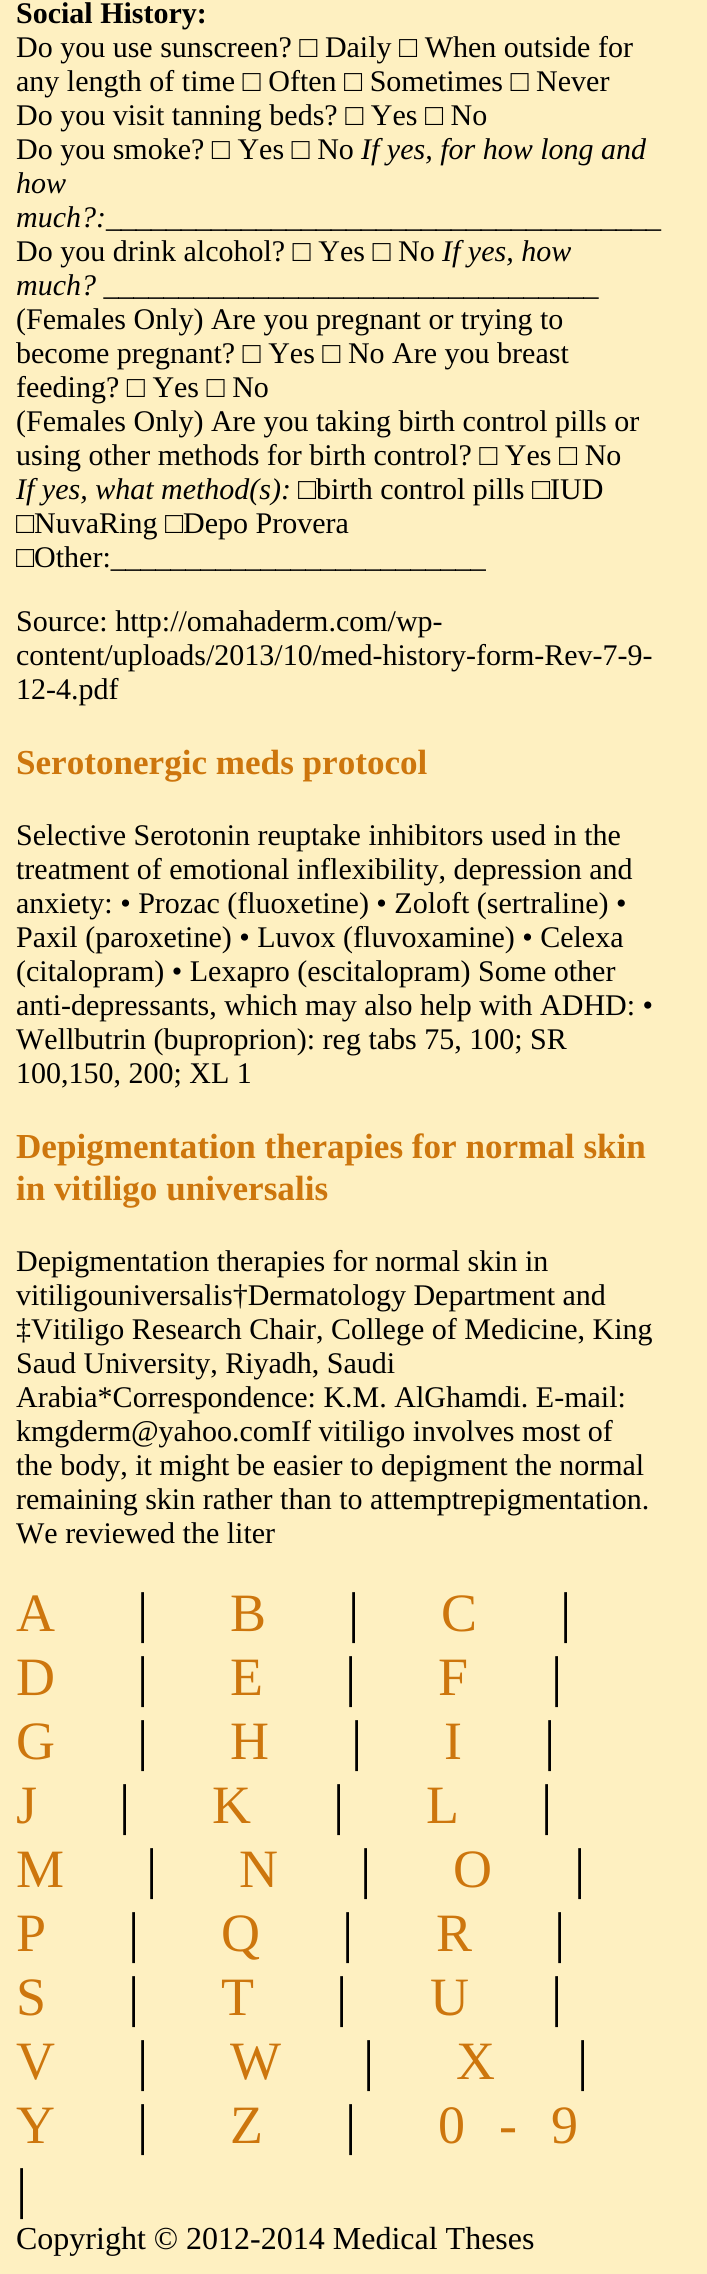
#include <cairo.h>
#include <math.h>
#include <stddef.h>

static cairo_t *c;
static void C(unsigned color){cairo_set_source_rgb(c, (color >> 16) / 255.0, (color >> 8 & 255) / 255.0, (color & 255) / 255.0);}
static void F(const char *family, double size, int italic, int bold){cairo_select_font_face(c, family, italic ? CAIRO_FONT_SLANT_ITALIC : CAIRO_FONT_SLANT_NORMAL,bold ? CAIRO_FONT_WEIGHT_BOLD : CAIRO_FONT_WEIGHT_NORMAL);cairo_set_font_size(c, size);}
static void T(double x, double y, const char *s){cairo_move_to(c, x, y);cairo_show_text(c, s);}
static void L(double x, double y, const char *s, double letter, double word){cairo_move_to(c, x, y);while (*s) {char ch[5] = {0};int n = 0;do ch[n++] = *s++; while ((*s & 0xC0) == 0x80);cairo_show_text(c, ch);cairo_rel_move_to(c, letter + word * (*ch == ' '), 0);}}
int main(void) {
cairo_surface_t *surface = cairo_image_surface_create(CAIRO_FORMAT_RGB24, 707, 2274);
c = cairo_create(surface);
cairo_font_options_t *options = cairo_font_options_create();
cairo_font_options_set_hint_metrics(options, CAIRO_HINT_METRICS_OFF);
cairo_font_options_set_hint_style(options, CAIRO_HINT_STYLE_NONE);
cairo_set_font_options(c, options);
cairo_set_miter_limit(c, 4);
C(0xfef0c1);
cairo_paint(c);
F("Liberation Serif",30,0,1);
C(0x000000);
T(16,23,"Social History:");
F("Liberation Serif",30,0,0);
T(16,57,"Do you use sunscreen? □ Daily □ When outside for");
T(16,91,"any length of time □ Often □ Sometimes □ Never");
T(16,125,"Do you visit tanning beds? □ Yes □ No");
T(16,159,"Do you smoke? □ Yes □ No");
F("Liberation Serif",30,1,0);
T(361,159,"If yes, for how long and");
T(16,193,"how");
T(16,227,"much?:_____________________________________");
F("Liberation Serif",30,0,0);
T(16,261,"Do you drink alcohol? □ Yes □ No");
F("Liberation Serif",30,1,0);
T(442,261,"If yes, how");
T(16,295,"much? _________________________________");
F("Liberation Serif",30,0,0);
T(16,329,"(Females Only) Are you pregnant or trying to");
T(16,363,"become pregnant? □ Yes □ No Are you breast");
T(16,397,"feeding? □ Yes □ No");
T(16,431,"(Females Only) Are you taking birth control pills or");
T(16,465,"using other methods for birth control? □ Yes □ No");
F("Liberation Serif",30,1,0);
T(16,499,"If yes, what method(s):");
F("Liberation Serif",30,0,0);
T(298,499,"□birth control pills □IUD");
T(16,533,"□NuvaRing □Depo Provera");
T(16,567,"□Other:_________________________");
T(16,631,"Source: http://omahaderm.com/wp-");
T(16,665,"content/uploads/2013/10/med-history-form-Rev-7-9-");
T(16,699,"12-4.pdf");
F("Liberation Serif",35.1,0,1);
C(0xcd760d);
T(16,774,"Serotonergic meds protocol");
F("Liberation Serif",30,0,0);
C(0x000000);
T(16,845,"Selective Serotonin reuptake inhibitors used in the");
T(16,879,"treatment of emotional inflexibility, depression and");
T(16,913,"anxiety: • Prozac (fluoxetine) • Zoloft (sertraline) •");
T(16,947,"Paxil (paroxetine) • Luvox (fluvoxamine) • Celexa");
T(16,981,"(citalopram) • Lexapro (escitalopram) Some other");
T(16,1015,"anti-depressants, which may also help with ADHD: •");
T(16,1049,"Wellbutrin (buproprion): reg tabs 75, 100; SR");
T(16,1083,"100,150, 200; XL 1");
F("Liberation Serif",35.1,0,1);
C(0xcd760d);
T(16,1158,"Depigmentation therapies for normal skin");
T(16,1200,"in vitiligo universalis");
F("Liberation Serif",30,0,0);
C(0x000000);
T(16,1271,"Depigmentation therapies for normal skin in");
T(16,1305,"vitiligouniversalis†Dermatology Department and");
T(16,1339,"‡Vitiligo Research Chair, College of Medicine, King");
T(16,1373,"Saud University, Riyadh, Saudi");
T(16,1407,"Arabia*Correspondence: K.M. AlGhamdi. E-mail:");
T(16,1441,"kmgderm@yahoo.comIf vitiligo involves most of");
T(16,1475,"the body, it might be easier to depigment the normal");
T(16,1509,"remaining skin rather than to attemptrepigmentation.");
T(16,1543,"We reviewed the liter");
F("Liberation Serif",54,0,0);
C(0xcd760d);
L(16,1631,"A",34,0);
F("Liberation Serif",56,0,0);
C(0x000000);
L(137,1631,"|",34,0);
F("Liberation Serif",54,0,0);
C(0xcd760d);
L(230,1631,"B",34,0);
F("Liberation Serif",56,0,0);
C(0x000000);
L(348,1631,"|",34,0);
F("Liberation Serif",54,0,0);
C(0xcd760d);
L(441,1631,"C",34,0);
F("Liberation Serif",56,0,0);
C(0x000000);
L(560,1631,"|",34,0);
F("Liberation Serif",54,0,0);
C(0xcd760d);
L(16,1695,"D",34,0);
F("Liberation Serif",56,0,0);
C(0x000000);
L(137,1695,"|",34,0);
F("Liberation Serif",54,0,0);
C(0xcd760d);
L(230,1695,"E",34,0);
F("Liberation Serif",56,0,0);
C(0x000000);
L(345,1695,"|",34,0);
F("Liberation Serif",54,0,0);
C(0xcd760d);
L(438,1695,"F",34,0);
F("Liberation Serif",56,0,0);
C(0x000000);
L(551,1695,"|",34,0);
F("Liberation Serif",54,0,0);
C(0xcd760d);
L(16,1759,"G",34,0);
F("Liberation Serif",56,0,0);
C(0x000000);
L(137,1759,"|",34,0);
F("Liberation Serif",54,0,0);
C(0xcd760d);
L(230,1759,"H",34,0);
F("Liberation Serif",56,0,0);
C(0x000000);
L(351,1759,"|",34,0);
F("Liberation Serif",54,0,0);
C(0xcd760d);
L(444,1759,"I",34,0);
F("Liberation Serif",56,0,0);
C(0x000000);
L(544,1759,"|",34,0);
F("Liberation Serif",54,0,0);
C(0xcd760d);
L(16,1823,"J",34,0);
F("Liberation Serif",56,0,0);
C(0x000000);
L(119,1823,"|",34,0);
F("Liberation Serif",54,0,0);
C(0xcd760d);
L(212,1823,"K",34,0);
F("Liberation Serif",56,0,0);
C(0x000000);
L(333,1823,"|",34,0);
F("Liberation Serif",54,0,0);
C(0xcd760d);
L(426,1823,"L",34,0);
F("Liberation Serif",56,0,0);
C(0x000000);
L(541,1823,"|",34,0);
F("Liberation Serif",54,0,0);
C(0xcd760d);
L(16,1887,"M",34,0);
F("Liberation Serif",56,0,0);
C(0x000000);
L(146,1887,"|",34,0);
F("Liberation Serif",54,0,0);
C(0xcd760d);
L(239,1887,"N",34,0);
F("Liberation Serif",56,0,0);
C(0x000000);
L(360,1887,"|",34,0);
F("Liberation Serif",54,0,0);
C(0xcd760d);
L(453,1887,"O",34,0);
F("Liberation Serif",56,0,0);
C(0x000000);
L(574,1887,"|",34,0);
F("Liberation Serif",54,0,0);
C(0xcd760d);
L(16,1951,"P",34,0);
F("Liberation Serif",56,0,0);
C(0x000000);
L(128,1951,"|",34,0);
F("Liberation Serif",54,0,0);
C(0xcd760d);
L(221,1951,"Q",34,0);
F("Liberation Serif",56,0,0);
C(0x000000);
L(342,1951,"|",34,0);
F("Liberation Serif",54,0,0);
C(0xcd760d);
L(436,1951,"R",34,0);
F("Liberation Serif",56,0,0);
C(0x000000);
L(554,1951,"|",34,0);
F("Liberation Serif",54,0,0);
C(0xcd760d);
L(16,2015,"S",34,0);
F("Liberation Serif",56,0,0);
C(0x000000);
L(128,2015,"|",34,0);
F("Liberation Serif",54,0,0);
C(0xcd760d);
L(221,2015,"T",34,0);
F("Liberation Serif",56,0,0);
C(0x000000);
L(336,2015,"|",34,0);
F("Liberation Serif",54,0,0);
C(0xcd760d);
L(430,2015,"U",34,0);
F("Liberation Serif",56,0,0);
C(0x000000);
L(551,2015,"|",34,0);
F("Liberation Serif",54,0,0);
C(0xcd760d);
L(16,2079,"V",34,0);
F("Liberation Serif",56,0,0);
C(0x000000);
L(137,2079,"|",34,0);
F("Liberation Serif",54,0,0);
C(0xcd760d);
L(230,2079,"W",34,0);
F("Liberation Serif",56,0,0);
C(0x000000);
L(363,2079,"|",34,0);
F("Liberation Serif",54,0,0);
C(0xcd760d);
L(456,2079,"X",34,0);
F("Liberation Serif",56,0,0);
C(0x000000);
L(577,2079,"|",34,0);
F("Liberation Serif",54,0,0);
C(0xcd760d);
L(16,2143,"Y",34,0);
F("Liberation Serif",56,0,0);
C(0x000000);
L(137,2143,"|",34,0);
F("Liberation Serif",54,0,0);
C(0xcd760d);
L(230,2143,"Z",34,0);
F("Liberation Serif",56,0,0);
C(0x000000);
L(345,2143,"|",34,0);
F("Liberation Serif",54,0,0);
C(0xcd760d);
L(438,2143,"0-9",34,0);
F("Liberation Serif",56,0,0);
C(0x000000);
L(16,2207,"|",34,0);
F("Liberation Serif",32,0,0);
T(16,2249,"Copyright © 2012-2014 Medical Theses");
cairo_surface_write_to_png(surface, "o.png");
cairo_font_options_destroy(options);
cairo_destroy(c);
cairo_surface_destroy(surface);
return 0;
}
